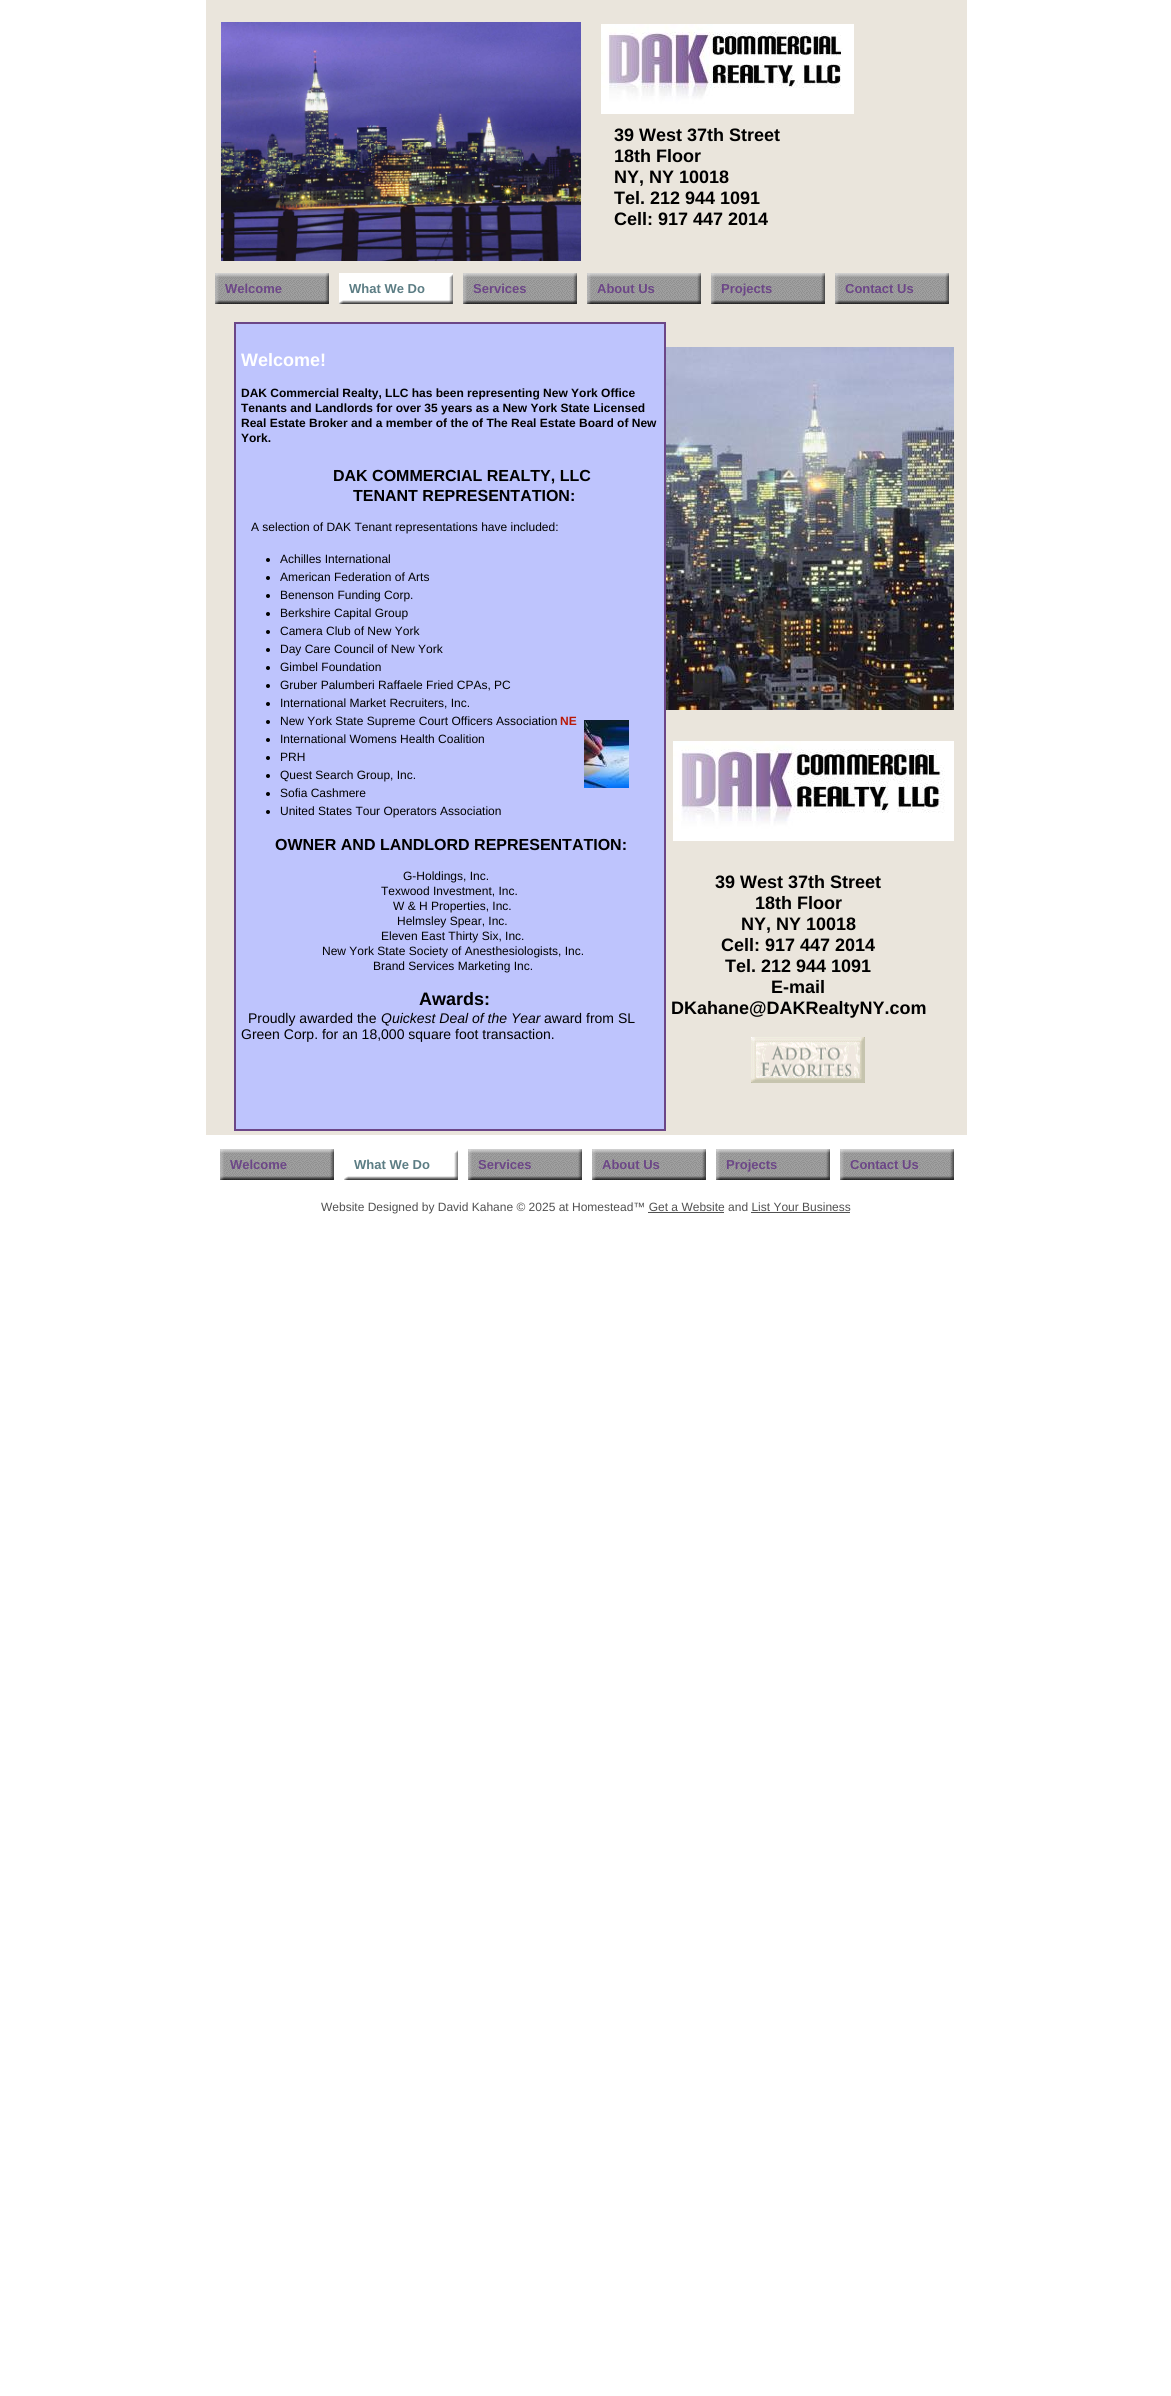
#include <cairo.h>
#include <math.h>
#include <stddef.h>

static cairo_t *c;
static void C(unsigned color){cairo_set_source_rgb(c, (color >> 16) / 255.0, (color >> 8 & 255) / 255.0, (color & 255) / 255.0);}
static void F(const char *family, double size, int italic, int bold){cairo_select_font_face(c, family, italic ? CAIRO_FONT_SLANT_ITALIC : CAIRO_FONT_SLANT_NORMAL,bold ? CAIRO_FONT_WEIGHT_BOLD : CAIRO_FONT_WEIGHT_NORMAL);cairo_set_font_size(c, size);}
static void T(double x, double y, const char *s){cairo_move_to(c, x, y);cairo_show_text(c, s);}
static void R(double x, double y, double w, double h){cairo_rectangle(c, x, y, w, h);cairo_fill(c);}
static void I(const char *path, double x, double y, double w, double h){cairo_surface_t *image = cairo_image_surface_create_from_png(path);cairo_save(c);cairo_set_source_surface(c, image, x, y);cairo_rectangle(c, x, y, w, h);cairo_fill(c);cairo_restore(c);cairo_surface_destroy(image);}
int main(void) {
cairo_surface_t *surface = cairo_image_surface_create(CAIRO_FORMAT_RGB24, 1171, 2396);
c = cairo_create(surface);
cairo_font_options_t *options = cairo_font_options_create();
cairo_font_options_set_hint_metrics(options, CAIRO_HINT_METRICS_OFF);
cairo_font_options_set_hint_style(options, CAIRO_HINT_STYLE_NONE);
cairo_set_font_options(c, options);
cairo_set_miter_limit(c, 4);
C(0xffffff);
cairo_paint(c);
C(0xeae5dc);
R(206,0,761,1135);
I("1.png",221,22,360,239);
I("2.png",601,24,253,90);
F("Liberation Sans",18,0,1);
C(0x000000);
T(614,141,"39 West 37th Street");
T(614,162,"18th Floor");
T(614,183,"NY, NY 10018");
T(614,204,"Tel. 212 944 1091");
T(614,225,"Cell: 917 447 2014");
I("3.png",215,273,114,31);
F("Liberation Sans",13,0,1);
C(0x6c4687);
T(225,293,"Welcome");
I("4.png",339,273,114,31);
C(0x5c7d84);
T(349,293,"What We Do");
I("3.png",463,273,114,31);
C(0x6c4687);
T(473,293,"Services");
I("3.png",587,273,114,31);
T(597,293,"About Us");
I("3.png",711,273,114,31);
T(721,293,"Projects");
I("3.png",835,273,114,31);
T(845,293,"Contact Us");
C(0xbec4fd);
cairo_rectangle(c,235,323,430,807);
cairo_fill_preserve(c);
C(0x6c4687);
cairo_stroke(c);
F("Liberation Sans",18,0,1);
C(0xffffff);
T(241,366,"Welcome!");
F("Liberation Sans",12,0,1);
C(0x000000);
T(241,397,"DAK Commercial Realty, LLC has been representing New York Office");
T(241,412,"Tenants and Landlords for over 35 years as a New York State Licensed");
T(241,427,"Real Estate Broker and a member of the of The Real Estate Board of New");
T(241,442,"York.");
F("Liberation Sans",16,0,1);
T(333,481,"DAK COMMERCIAL REALTY, LLC");
T(353,501,"TENANT REPRESENTATION:");
F("Liberation Sans",12,0,0);
T(251,531,"A selection of DAK Tenant representations have included:");
cairo_new_path(c);
cairo_arc(c,268,560,2,0,2 * M_PI);
cairo_fill(c);
T(280,563,"Achilles International");
cairo_new_path(c);
cairo_arc(c,268,578,2,0,2 * M_PI);
cairo_fill(c);
T(280,581,"American Federation of Arts");
cairo_new_path(c);
cairo_arc(c,268,596,2,0,2 * M_PI);
cairo_fill(c);
T(280,599,"Benenson Funding Corp.");
cairo_new_path(c);
cairo_arc(c,268,614,2,0,2 * M_PI);
cairo_fill(c);
T(280,617,"Berkshire Capital Group");
cairo_new_path(c);
cairo_arc(c,268,632,2,0,2 * M_PI);
cairo_fill(c);
T(280,635,"Camera Club of New York");
cairo_new_path(c);
cairo_arc(c,268,650,2,0,2 * M_PI);
cairo_fill(c);
T(280,653,"Day Care Council of New York");
cairo_new_path(c);
cairo_arc(c,268,668,2,0,2 * M_PI);
cairo_fill(c);
T(280,671,"Gimbel Foundation");
cairo_new_path(c);
cairo_arc(c,268,686,2,0,2 * M_PI);
cairo_fill(c);
T(280,689,"Gruber Palumberi Raffaele Fried CPAs, PC");
cairo_new_path(c);
cairo_arc(c,268,704,2,0,2 * M_PI);
cairo_fill(c);
T(280,707,"International Market Recruiters, Inc.");
cairo_new_path(c);
cairo_arc(c,268,722,2,0,2 * M_PI);
cairo_fill(c);
T(280,725,"New York State Supreme Court Officers Association");
F("Liberation Sans",12,0,1);
C(0xb91806);
T(560,725,"NE");
C(0x000000);
cairo_new_path(c);
cairo_arc(c,268,740,2,0,2 * M_PI);
cairo_fill(c);
F("Liberation Sans",12,0,0);
T(280,743,"International Womens Health Coalition");
cairo_new_path(c);
cairo_arc(c,268,758,2,0,2 * M_PI);
cairo_fill(c);
T(280,761,"PRH");
cairo_new_path(c);
cairo_arc(c,268,776,2,0,2 * M_PI);
cairo_fill(c);
T(280,779,"Quest Search Group, Inc.");
cairo_new_path(c);
cairo_arc(c,268,794,2,0,2 * M_PI);
cairo_fill(c);
T(280,797,"Sofia Cashmere");
cairo_new_path(c);
cairo_arc(c,268,812,2,0,2 * M_PI);
cairo_fill(c);
T(280,815,"United States Tour Operators Association");
F("Liberation Sans",16,0,1);
T(275,850,"OWNER AND LANDLORD REPRESENTATION:");
F("Liberation Sans",12,0,0);
T(403,880,"G-Holdings, Inc.");
T(381,895,"Texwood Investment, Inc.");
T(393,910,"W & H Properties, Inc.");
T(397,925,"Helmsley Spear, Inc.");
T(381,940,"Eleven East Thirty Six, Inc.");
T(322,955,"New York State Society of Anesthesiologists, Inc.");
T(373,970,"Brand Services Marketing Inc.");
F("Liberation Sans",18,0,1);
T(419,1005,"Awards:");
F("Liberation Sans",14,0,0);
T(248,1023,"Proudly awarded the");
F("Liberation Sans",14,1,0);
T(381,1023,"Quickest Deal of the Year");
F("Liberation Sans",14,0,0);
T(544,1023,"award from SL");
T(241,1039,"Green Corp. for an 18,000 square foot transaction.");
I("5.png",666,347,288,363);
I("6.png",584,720,45,68);
I("7.png",673,741,281,100);
F("Liberation Sans",18,0,1);
T(715,888,"39 West 37th Street");
T(755,909,"18th Floor");
T(741,930,"NY, NY 10018");
T(721,951,"Cell: 917 447 2014");
T(725,972,"Tel. 212 944 1091");
T(771,993,"E-mail");
T(671,1014,"DKahane@DAKRealtyNY.com");
I("8.png",751,1037,114,46);
I("3.png",220,1149,114,31);
F("Liberation Sans",13,0,1);
C(0x6c4687);
T(230,1169,"Welcome");
I("9.png",344,1150,114,30);
C(0x5c7d84);
T(354,1169,"What We Do");
I("3.png",468,1149,114,31);
C(0x6c4687);
T(478,1169,"Services");
I("3.png",592,1149,114,31);
T(602,1169,"About Us");
I("3.png",716,1149,114,31);
T(726,1169,"Projects");
I("3.png",840,1149,114,31);
T(850,1169,"Contact Us");
F("Liberation Sans",12,0,0);
C(0x505050);
T(321,1211,"Website Designed by David Kahane © 2025 at Homestead™ Get a Website and List Your Business");
R(648,1212,76,1);
R(751,1212,99,1);
cairo_surface_write_to_png(surface, "o.png");
cairo_font_options_destroy(options);
cairo_destroy(c);
cairo_surface_destroy(surface);
return 0;
}
